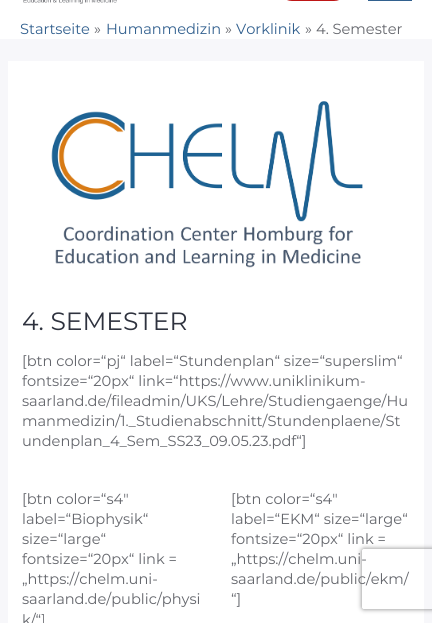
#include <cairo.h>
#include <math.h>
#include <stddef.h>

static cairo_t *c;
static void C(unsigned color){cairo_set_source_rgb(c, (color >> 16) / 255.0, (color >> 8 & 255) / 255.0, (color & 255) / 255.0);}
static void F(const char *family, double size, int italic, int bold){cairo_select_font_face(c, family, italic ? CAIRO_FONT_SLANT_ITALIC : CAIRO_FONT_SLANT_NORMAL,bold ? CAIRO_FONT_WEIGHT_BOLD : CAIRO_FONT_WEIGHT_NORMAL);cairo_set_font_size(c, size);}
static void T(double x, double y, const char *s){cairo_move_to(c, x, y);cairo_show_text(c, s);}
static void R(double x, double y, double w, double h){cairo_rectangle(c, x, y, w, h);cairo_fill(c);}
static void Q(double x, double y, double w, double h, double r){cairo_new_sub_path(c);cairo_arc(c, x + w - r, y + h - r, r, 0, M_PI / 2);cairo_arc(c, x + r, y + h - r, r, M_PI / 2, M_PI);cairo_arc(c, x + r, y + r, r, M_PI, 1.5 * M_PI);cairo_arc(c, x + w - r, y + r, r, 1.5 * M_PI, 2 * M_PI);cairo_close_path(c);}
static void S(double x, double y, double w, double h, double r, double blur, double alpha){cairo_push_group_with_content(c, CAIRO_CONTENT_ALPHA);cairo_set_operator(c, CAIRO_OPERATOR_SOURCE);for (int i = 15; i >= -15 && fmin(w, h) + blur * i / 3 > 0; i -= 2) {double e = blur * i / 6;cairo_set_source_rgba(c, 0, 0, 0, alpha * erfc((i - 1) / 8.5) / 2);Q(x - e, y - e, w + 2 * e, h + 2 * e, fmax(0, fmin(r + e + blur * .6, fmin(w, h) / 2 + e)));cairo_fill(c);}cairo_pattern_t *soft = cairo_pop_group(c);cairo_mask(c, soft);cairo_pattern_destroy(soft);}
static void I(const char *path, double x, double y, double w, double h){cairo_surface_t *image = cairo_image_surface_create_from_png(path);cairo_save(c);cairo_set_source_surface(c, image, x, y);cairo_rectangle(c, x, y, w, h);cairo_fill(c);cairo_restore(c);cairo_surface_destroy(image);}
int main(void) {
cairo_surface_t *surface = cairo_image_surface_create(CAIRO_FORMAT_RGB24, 432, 623);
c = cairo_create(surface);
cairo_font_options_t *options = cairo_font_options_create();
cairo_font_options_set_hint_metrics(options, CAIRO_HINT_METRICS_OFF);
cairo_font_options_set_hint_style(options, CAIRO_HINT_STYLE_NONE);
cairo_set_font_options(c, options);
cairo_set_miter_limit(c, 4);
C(0xf7f7fa);
cairo_paint(c);
C(0xffffff);
R(0,0,432,39);
C(0xbe1616);
Q(278,-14,70,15,14);
cairo_fill(c);
C(0x32618f);
R(368,0,44,1);
I("1.png",23,0,94,4);
F("Montserrat",14.6,0,0);
C(0x32608f);
T(20,34,"Startseite");
C(0x64666c);
T(94,34,"»");
C(0x32608f);
T(106,34,"Humanmedizin");
C(0x64666c);
T(225,34,"»");
C(0x32608f);
T(236,34,"Vorklinik");
C(0x64666c);
T(305,34,"»");
T(316,34,"4. Semester");
C(0xffffff);
R(8,61,416,562);
I("2.png",51,101,312,167);
F("Montserrat",25,0,0);
C(0x2e323e);
T(22,330,"4. SEMESTER");
F("Montserrat",14.6,0,0);
C(0x64666c);
T(22,366,"[btn color=“pj“ label=“Stundenplan“ size=“superslim“");
T(22,386,"fontsize=“20px“ link=“https://www.uniklinikum-");
T(22,406,"saarland.de/fileadmin/UKS/Lehre/Studiengaenge/Hu");
T(22,426,"manmedizin/1._Studienabschnitt/Stundenplaene/St");
T(22,446,"undenplan_4_Sem_SS23_09.05.23.pdf“]");
T(22,504,"[btn color=“s4″");
T(22,524,"label=“Biophysik“");
T(22,544,"size=“large“");
T(22,564,"fontsize=“20px“ link =");
T(22,584,"„https://chelm.uni-");
T(22,604,"saarland.de/public/physi");
T(22,625,"k/“]");
T(231,504,"[btn color=“s4″");
T(231,524,"label=“EKM“ size=“large“");
T(231,544,"fontsize=“20px“ link =");
T(231,564,"„https://chelm.uni-");
T(231,584,"saarland.de/public/ekm/");
T(231,604,"“]");
cairo_save(c);
cairo_set_fill_rule(c,CAIRO_FILL_RULE_EVEN_ODD);
cairo_new_path(c);
cairo_move_to(c,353,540);
cairo_line_to(c,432,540);
cairo_line_to(c,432,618);
cairo_line_to(c,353,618);
cairo_close_path(c);
cairo_move_to(c,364,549);
cairo_line_to(c,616,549);
cairo_curve_to(c,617,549,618,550,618,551);
cairo_line_to(c,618,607);
cairo_curve_to(c,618,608,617,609,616,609);
cairo_line_to(c,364,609);
cairo_curve_to(c,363,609,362,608,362,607);
cairo_line_to(c,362,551);
cairo_curve_to(c,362,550,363,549,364,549);
cairo_close_path(c);
cairo_clip(c);
C(0x808080);
S(362,549,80,60,2,2.5,1);
cairo_restore(c);
cairo_surface_write_to_png(surface, "o.png");
cairo_font_options_destroy(options);
cairo_destroy(c);
cairo_surface_destroy(surface);
return 0;
}
